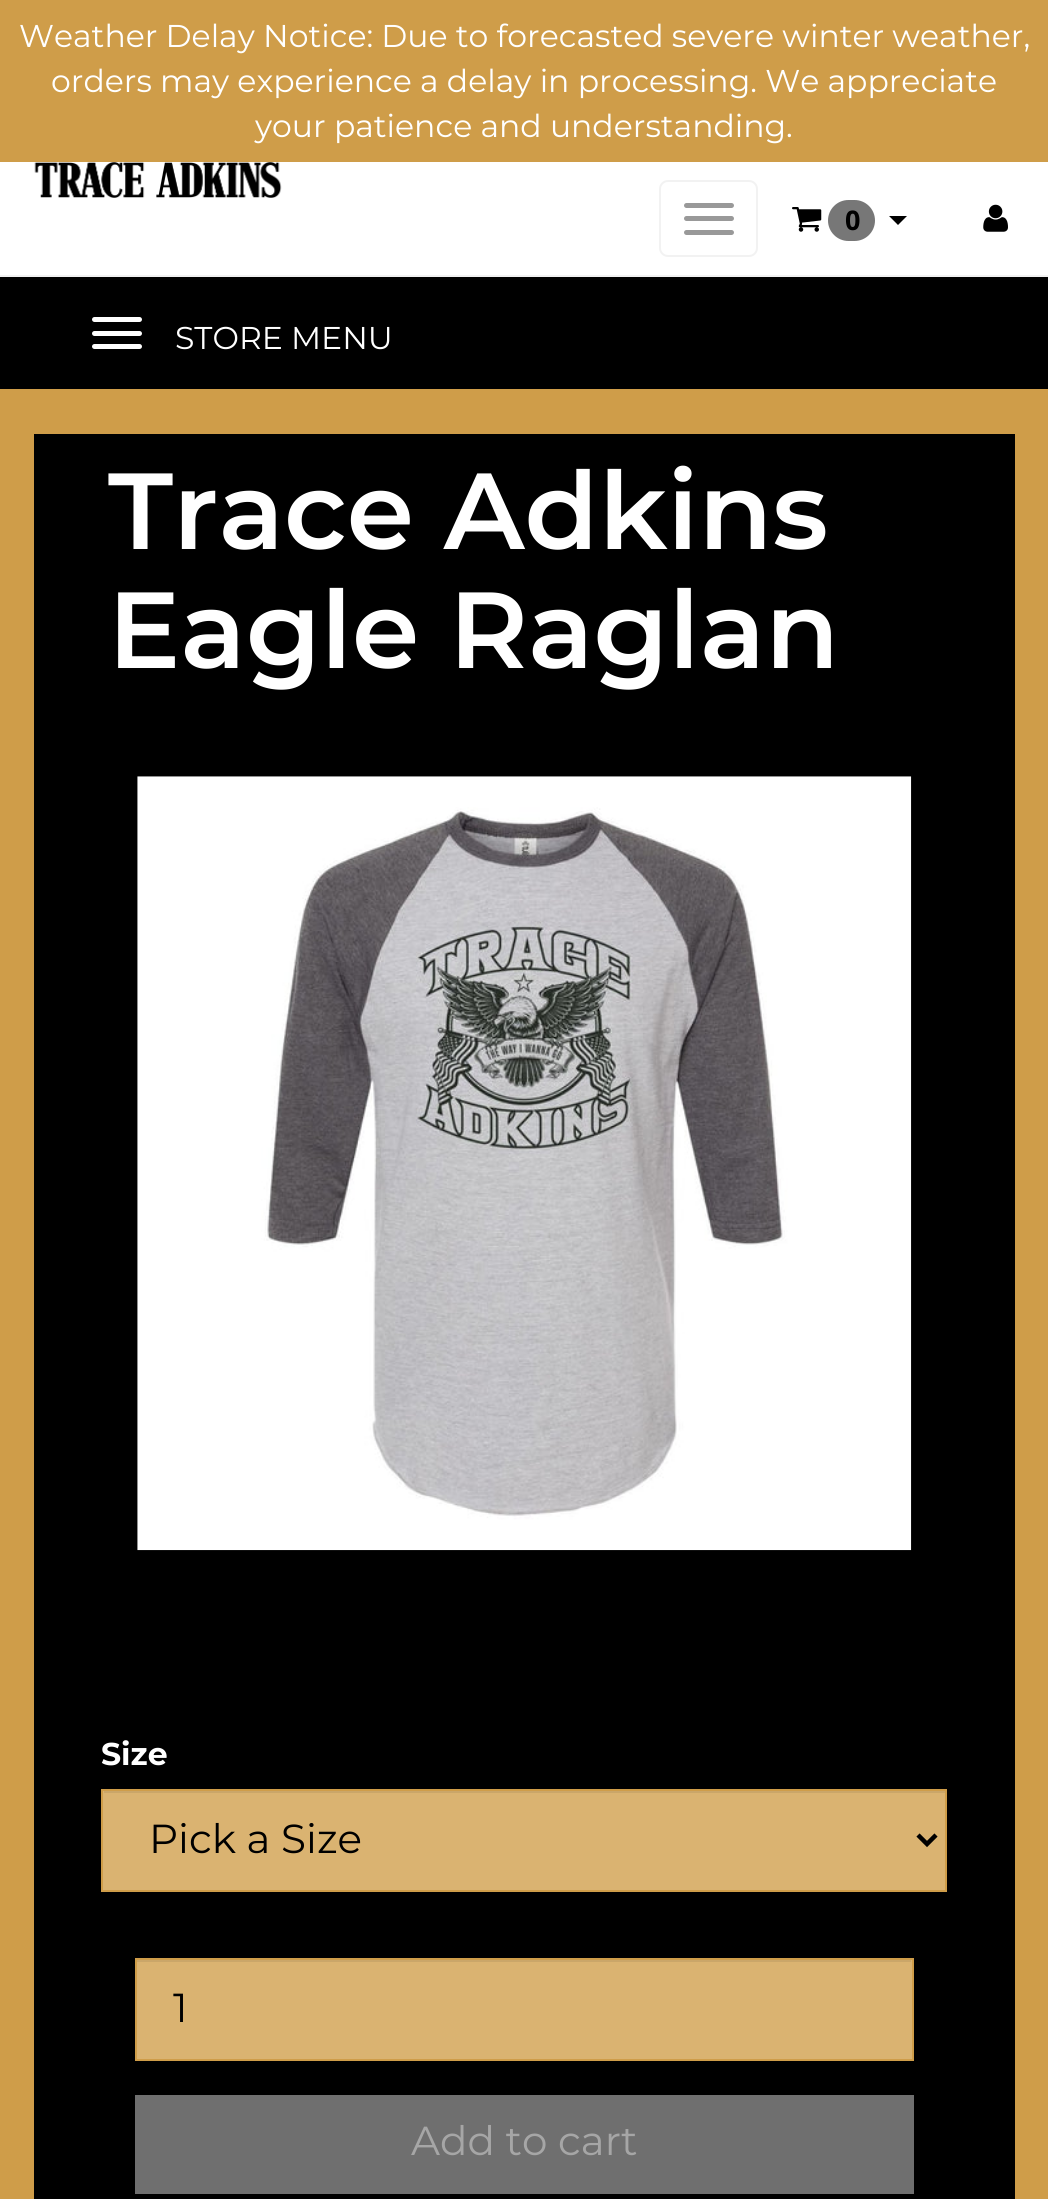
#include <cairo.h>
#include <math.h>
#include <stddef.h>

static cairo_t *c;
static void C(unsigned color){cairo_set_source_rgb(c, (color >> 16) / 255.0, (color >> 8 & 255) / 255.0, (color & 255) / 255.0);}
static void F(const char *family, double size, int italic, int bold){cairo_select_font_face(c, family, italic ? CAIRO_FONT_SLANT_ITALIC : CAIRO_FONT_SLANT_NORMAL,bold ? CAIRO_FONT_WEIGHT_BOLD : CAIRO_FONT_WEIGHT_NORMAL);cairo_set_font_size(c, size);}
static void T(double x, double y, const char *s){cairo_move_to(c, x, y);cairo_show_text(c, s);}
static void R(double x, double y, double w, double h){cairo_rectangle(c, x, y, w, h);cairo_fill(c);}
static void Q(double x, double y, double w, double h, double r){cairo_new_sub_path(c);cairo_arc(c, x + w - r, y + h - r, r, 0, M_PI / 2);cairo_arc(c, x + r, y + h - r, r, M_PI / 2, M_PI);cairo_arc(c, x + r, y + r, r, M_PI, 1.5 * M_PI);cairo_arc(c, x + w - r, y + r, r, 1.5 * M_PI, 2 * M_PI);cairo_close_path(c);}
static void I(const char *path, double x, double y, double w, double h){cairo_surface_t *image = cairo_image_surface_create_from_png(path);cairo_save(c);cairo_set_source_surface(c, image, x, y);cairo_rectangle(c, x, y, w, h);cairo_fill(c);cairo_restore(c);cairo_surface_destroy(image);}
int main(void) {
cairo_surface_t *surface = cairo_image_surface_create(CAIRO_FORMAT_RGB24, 1048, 2199);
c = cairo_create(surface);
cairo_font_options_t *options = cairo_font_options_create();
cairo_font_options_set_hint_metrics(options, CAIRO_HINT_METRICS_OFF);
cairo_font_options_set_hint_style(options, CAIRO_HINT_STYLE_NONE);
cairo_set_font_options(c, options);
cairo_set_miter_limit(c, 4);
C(0xcf9d49);
cairo_paint(c);
F("Montserrat",31.5,0,0);
C(0xffffff);
T(19,47,"Weather Delay Notice: Due to forecasted severe winter weather,");
T(51,92,"orders may experience a delay in processing. We appreciate");
T(255,137,"your patience and understanding.");
R(0,162,1048,113);
C(0xf2f2f2);
R(0,275,1048,2);
I("1.png",34,162,248,36);
Q(660,181,97,75,8);
cairo_stroke(c);
C(0x999999);
Q(684,203,50,5,2.5);
cairo_fill(c);
Q(684,216,50,5,2.5);
cairo_fill(c);
Q(684,230,50,5,2.5);
cairo_fill(c);
I("2.png",792,207,30,25);
C(0x777777);
Q(828,200,47,41,20.5);
cairo_fill(c);
F("Open Sans",27,0,1);
C(0x000000);
T(845,230,"0");
cairo_new_path(c);
cairo_move_to(c,889,216);
cairo_line_to(c,907,216);
cairo_line_to(c,898,225);
cairo_close_path(c);
cairo_fill(c);
I("3.png",983,204,25,28);
R(0,277,1048,112);
C(0xffffff);
Q(92,317,50,5,2.5);
cairo_fill(c);
Q(92,331,50,5,2.5);
cairo_fill(c);
Q(92,344,50,5,2.5);
cairo_fill(c);
F("Montserrat",31.5,0,0);
T(175,349,"STORE MENU");
C(0x000000);
R(34,434,981,1765);
F("Montserrat SemiBold",108,0,0);
C(0xffffff);
T(108,549,"Trace Adkins");
T(108,668,"Eagle Raglan");
I("4.png",137,776,775,775);
F("Montserrat",31.5,0,1);
T(101,1765,"Size");
C(0xdab371);
R(103,1791,842,99);
C(0xcaa669);
R(104,1791,841,2);
cairo_rectangle(c,102,1790,844,101);
C(0xcf9d49);
cairo_stroke(c);
cairo_new_path(c);
cairo_move_to(c,918,1835);
cairo_line_to(c,927,1844);
cairo_line_to(c,936,1835);
C(0x000000);
cairo_set_line_width(c,4.5);
cairo_stroke(c);
F("Montserrat",40.5,0,0);
T(149,1853,"Pick a Size");
C(0xdab371);
R(137,1960,775,99);
C(0xcaa669);
R(137,1960,774,2);
cairo_rectangle(c,136,1959,777,101);
C(0xcf9d49);
cairo_set_line_width(c,2);
cairo_stroke(c);
C(0x000000);
T(173,2022,"1");
C(0x6f6f6f);
R(135,2095,779,99);
C(0xa6a6a6);
T(411,2155,"Add to cart");
cairo_surface_write_to_png(surface, "o.png");
cairo_font_options_destroy(options);
cairo_destroy(c);
cairo_surface_destroy(surface);
return 0;
}
